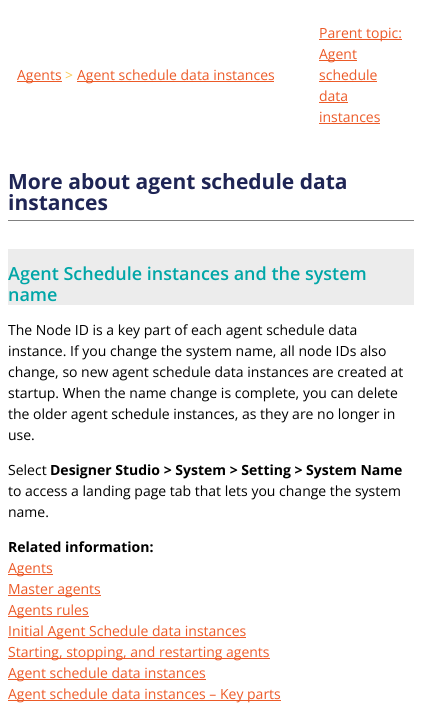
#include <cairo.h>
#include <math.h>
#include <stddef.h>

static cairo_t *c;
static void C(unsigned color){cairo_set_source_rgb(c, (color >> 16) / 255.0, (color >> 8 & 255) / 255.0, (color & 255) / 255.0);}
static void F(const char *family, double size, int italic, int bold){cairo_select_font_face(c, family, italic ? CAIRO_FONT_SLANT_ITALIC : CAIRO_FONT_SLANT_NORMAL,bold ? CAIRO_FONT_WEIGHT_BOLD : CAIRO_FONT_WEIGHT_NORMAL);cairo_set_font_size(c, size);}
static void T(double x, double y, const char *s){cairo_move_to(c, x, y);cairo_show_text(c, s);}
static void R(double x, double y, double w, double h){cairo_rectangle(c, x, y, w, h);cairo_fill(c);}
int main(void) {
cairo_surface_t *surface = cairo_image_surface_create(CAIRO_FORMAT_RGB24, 422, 712);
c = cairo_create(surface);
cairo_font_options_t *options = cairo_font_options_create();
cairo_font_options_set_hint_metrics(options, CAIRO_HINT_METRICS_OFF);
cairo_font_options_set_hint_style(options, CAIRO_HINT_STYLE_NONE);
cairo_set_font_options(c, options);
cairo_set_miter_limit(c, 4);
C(0xffffff);
cairo_paint(c);
C(0xec5a28);
R(17,81,45,1);
F("Open Sans",14,0,0);
T(17,80,"Agents");
C(0xf9cb55);
T(65,80,">");
C(0xec5a28);
R(77,81,197,1);
T(77,80,"Agent schedule data instances");
R(319,39,83,1);
T(319,38,"Parent topic:");
R(319,60,38,1);
T(319,59,"Agent");
T(319,80,"schedule");
R(319,81,58,1);
T(319,101,"data");
R(319,102,29,1);
T(319,122,"instances");
R(319,123,61,1);
C(0x808080);
R(8,220,406,1);
F("Open Sans",21,0,1);
C(0x1f2555);
T(8,189,"More about agent schedule data");
T(8,210,"instances");
C(0xececec);
R(8,249,406,56);
F("Open Sans SemiBold",18,0,0);
C(0x00a6a7);
T(8,280,"Agent Schedule instances and the system");
T(8,301,"name");
F("Open Sans",14,0,0);
C(0x000000);
T(8,335,"The Node ID is a key part of each agent schedule data");
T(8,356,"instance. If you change the system name, all node IDs also");
T(8,377,"change, so new agent schedule data instances are created at");
T(8,398,"startup. When the name change is complete, you can delete");
T(8,419,"the older agent schedule instances, as they are no longer in");
T(8,440,"use.");
T(8,475,"Select");
F("Open Sans",14,0,1);
T(50,475,"Designer Studio > System > Setting > System Name");
F("Open Sans",14,0,0);
T(8,496,"to access a landing page tab that lets you change the system");
T(8,517,"name.");
F("Open Sans",14,0,1);
T(8,552,"Related information:");
C(0xec5a28);
R(8,574,45,1);
F("Open Sans",14,0,0);
T(8,573,"Agents");
R(8,595,93,1);
T(8,594,"Master agents");
R(8,616,81,1);
T(8,615,"Agents rules");
R(8,637,238,1);
T(8,636,"Initial Agent Schedule data instances");
R(8,658,262,1);
T(8,657,"Starting, stopping, and restarting agents");
R(8,679,198,1);
T(8,678,"Agent schedule data instances");
R(8,700,273,1);
T(8,699,"Agent schedule data instances – Key parts");
cairo_surface_write_to_png(surface, "o.png");
cairo_font_options_destroy(options);
cairo_destroy(c);
cairo_surface_destroy(surface);
return 0;
}
